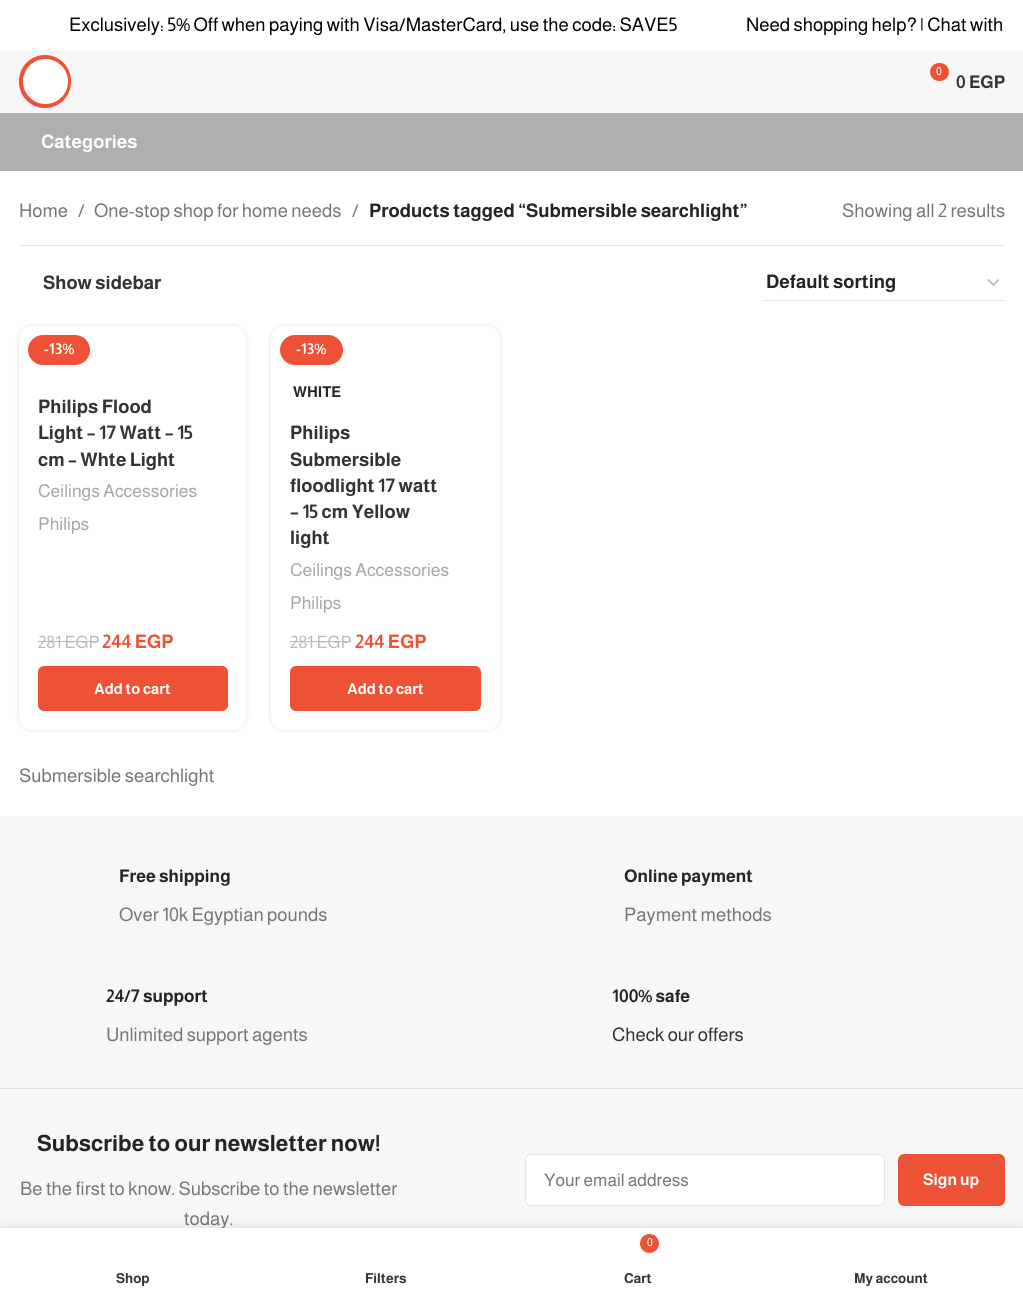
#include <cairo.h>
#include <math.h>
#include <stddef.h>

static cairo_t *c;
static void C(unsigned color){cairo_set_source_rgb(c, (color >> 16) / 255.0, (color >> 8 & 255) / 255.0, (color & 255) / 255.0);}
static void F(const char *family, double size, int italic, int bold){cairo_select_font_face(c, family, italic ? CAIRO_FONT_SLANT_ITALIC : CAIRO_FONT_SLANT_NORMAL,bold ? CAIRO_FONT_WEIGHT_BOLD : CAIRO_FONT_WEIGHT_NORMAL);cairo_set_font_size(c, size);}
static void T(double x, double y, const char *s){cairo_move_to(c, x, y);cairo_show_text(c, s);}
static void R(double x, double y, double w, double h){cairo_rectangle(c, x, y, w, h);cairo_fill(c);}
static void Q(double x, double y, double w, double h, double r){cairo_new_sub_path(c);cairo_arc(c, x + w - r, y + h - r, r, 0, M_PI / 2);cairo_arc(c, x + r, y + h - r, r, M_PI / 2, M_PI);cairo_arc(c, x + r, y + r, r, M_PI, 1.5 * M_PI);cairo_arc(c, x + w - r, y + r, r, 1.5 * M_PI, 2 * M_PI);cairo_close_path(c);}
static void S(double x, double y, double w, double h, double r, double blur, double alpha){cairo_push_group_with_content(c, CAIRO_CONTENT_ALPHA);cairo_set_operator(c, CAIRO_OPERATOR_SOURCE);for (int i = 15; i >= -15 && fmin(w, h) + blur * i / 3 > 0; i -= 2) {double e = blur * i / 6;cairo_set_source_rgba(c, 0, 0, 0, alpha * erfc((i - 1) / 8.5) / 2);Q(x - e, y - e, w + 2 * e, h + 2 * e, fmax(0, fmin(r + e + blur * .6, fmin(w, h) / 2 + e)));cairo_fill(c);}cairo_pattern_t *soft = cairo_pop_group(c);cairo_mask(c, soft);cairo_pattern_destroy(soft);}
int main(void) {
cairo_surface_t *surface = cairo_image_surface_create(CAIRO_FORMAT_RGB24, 1023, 1296);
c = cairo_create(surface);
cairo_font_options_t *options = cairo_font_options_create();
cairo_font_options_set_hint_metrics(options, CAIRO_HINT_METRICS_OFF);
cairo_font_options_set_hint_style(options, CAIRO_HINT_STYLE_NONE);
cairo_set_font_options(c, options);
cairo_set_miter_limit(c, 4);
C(0xffffff);
cairo_paint(c);
F("Almarai",18.75,0,0);
C(0x000000);
T(69,31,"Exclusively: 5% Off when paying with Visa/MasterCard, use the code: SAVE5");
T(746,31,"Need shopping help? | Chat with");
C(0xf6f6f6);
R(0,50,1023,63);
C(0xed5237);
Q(19,55,52,53,26);
cairo_fill(c);
C(0xffffff);
cairo_arc(c,45.5,81.5,22.5,0,2 * M_PI);
cairo_fill(c);
C(0xed5237);
Q(930,63,19,18,9);
cairo_fill(c);
F("Almarai",11,0,0);
C(0xffffff);
T(936,75,"0");
F("Almarai",17.5,0,1);
C(0x333333);
T(956,88,"0 EGP");
C(0xafafaf);
R(0,113,1023,58);
F("Almarai",18.75,0,1);
C(0xffffff);
T(41,148,"Categories");
C(0xe4e4e4);
R(19,245,986,1);
F("Almarai",18.75,0,0);
C(0x767676);
T(19,217,"Home");
T(78,217,"/");
T(94,217,"One-stop shop for home needs");
T(352,217,"/");
F("Almarai",18.75,0,1);
C(0x242424);
T(369,217,"Products tagged “Submersible searchlight”");
F("Almarai",18.75,0,0);
C(0x767676);
T(842,217,"Showing all 2 results");
F("Almarai",18.75,0,1);
C(0x333333);
T(43,289,"Show sidebar");
cairo_new_path(c);
cairo_move_to(c,988,279.5);
cairo_line_to(c,993.5,285);
cairo_line_to(c,998.5,279.5);
C(0xbbbbbb);
cairo_set_line_width(c,1.8);
cairo_stroke(c);
C(0xe6e6e6);
R(764,300,241,1);
C(0x242424);
T(766,288,"Default sorting");
C(0x000000);
S(19,326,227,404,13,2.5,.12);
C(0xffffff);
Q(19,326,227,404,13);
cairo_fill(c);
C(0xed5237);
Q(28,335,62,30,15);
cairo_fill(c);
F("Almarai",15,0,1);
C(0xffffff);
T(44,354,"-13%");
F("Almarai",18.75,0,1);
C(0x333333);
T(38,413,"Philips Flood");
T(38,439,"Light – 17 Watt – 15");
T(38,466,"cm – Whte Light");
F("Almarai",17.75,0,0);
C(0xa5a5a5);
T(38,497,"Ceilings Accessories");
T(38,530,"Philips");
F("Almarai",17,0,0);
C(0xbbbbbb);
T(38,648,"281 EGP");
R(38,641,61,1);
F("Almarai",18.75,0,1);
C(0xed5237);
T(102,648,"244 EGP");
Q(38,666,190,45,6);
cairo_fill(c);
F("Almarai",15,0,1);
C(0xffffff);
T(94,694,"Add to cart");
C(0x000000);
S(271,326,229,404,13,2.5,.12);
C(0xffffff);
Q(271,326,229,404,13);
cairo_fill(c);
C(0xed5237);
Q(280,335,63,30,15);
cairo_fill(c);
C(0xffffff);
T(296,354,"-13%");
C(0x242424);
T(293,397,"WHITE");
C(0xffffff);
cairo_new_path(c);
cairo_move_to(c,271,405);
cairo_line_to(c,500,405);
cairo_line_to(c,500,717);
cairo_curve_to(c,500,724,494,730,487,730);
cairo_line_to(c,284,730);
cairo_curve_to(c,277,730,271,724,271,717);
cairo_close_path(c);
cairo_fill(c);
F("Almarai",18.75,0,1);
C(0x333333);
T(290,439,"Philips");
T(290,466,"Submersible");
T(290,492,"floodlight 17 watt");
T(290,518,"– 15 cm Yellow");
T(290,544,"light");
F("Almarai",17.75,0,0);
C(0xa5a5a5);
T(290,576,"Ceilings Accessories");
T(290,609,"Philips");
F("Almarai",17,0,0);
C(0xbbbbbb);
T(290,648,"281 EGP");
R(290,641,61,1);
F("Almarai",18.75,0,1);
C(0xed5237);
T(355,648,"244 EGP");
Q(290,666,191,45,6);
cairo_fill(c);
F("Almarai",15,0,1);
C(0xffffff);
T(347,694,"Add to cart");
F("Almarai",18.75,0,0);
C(0x767676);
T(19,782,"Submersible searchlight");
C(0xf7f7f7);
R(0,816,1023,272);
C(0xdfdfdf);
R(0,1088,1023,1);
F("Almarai",17.5,0,1);
C(0x242424);
T(119,882,"Free shipping");
F("Almarai",18.75,0,0);
C(0x767676);
T(119,921,"Over 10k Egyptian pounds");
F("Almarai",17.5,0,1);
C(0x242424);
T(624,882,"Online payment");
F("Almarai",18.75,0,0);
C(0x767676);
T(624,921,"Payment methods");
F("Almarai",17.5,0,1);
C(0x242424);
T(106,1002,"24/7 support");
F("Almarai",18.75,0,0);
C(0x767676);
T(106,1041,"Unlimited support agents");
F("Almarai",17.5,0,1);
C(0x242424);
T(612,1002,"100% safe");
F("Almarai",18.75,0,0);
C(0x333333);
T(612,1041,"Check our offers");
C(0xf7f7f7);
R(0,1089,1023,139);
F("Almarai",22.5,0,1);
C(0x242424);
T(37,1151,"Subscribe to our newsletter now!");
F("Almarai",18.75,0,0);
C(0x767676);
T(20,1195,"Be the first to know. Subscribe to the newsletter");
T(184,1225,"today.");
C(0xffffff);
Q(525.5,1154.5,359,51,5.5);
cairo_fill_preserve(c);
C(0xe5e5e5);
cairo_set_line_width(c,1);
cairo_stroke(c);
F("Almarai",17.5,0,0);
C(0x767676);
T(544,1186,"Your email address");
C(0xed5237);
Q(898,1154,107,52,6);
cairo_fill(c);
F("Almarai",16,0,1);
C(0xffffff);
T(923,1185,"Sign up");
C(0x000000);
S(0,1228,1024,68,0,5.5,.12);
C(0xffffff);
R(0,1228,1023,68);
F("Almarai",13.75,0,1);
C(0x333333);
T(116,1283,"Shop");
T(365,1283,"Filters");
C(0xed5237);
cairo_new_path(c);
cairo_arc(c,649.5,1243.5,9.5,0,2 * M_PI);
cairo_fill(c);
F("Almarai",11,0,0);
C(0xffffff);
T(647,1246,"0");
F("Almarai",13.75,0,1);
C(0x333333);
T(624,1283,"Cart");
T(854,1283,"My account");
cairo_surface_write_to_png(surface, "o.png");
cairo_font_options_destroy(options);
cairo_destroy(c);
cairo_surface_destroy(surface);
return 0;
}
